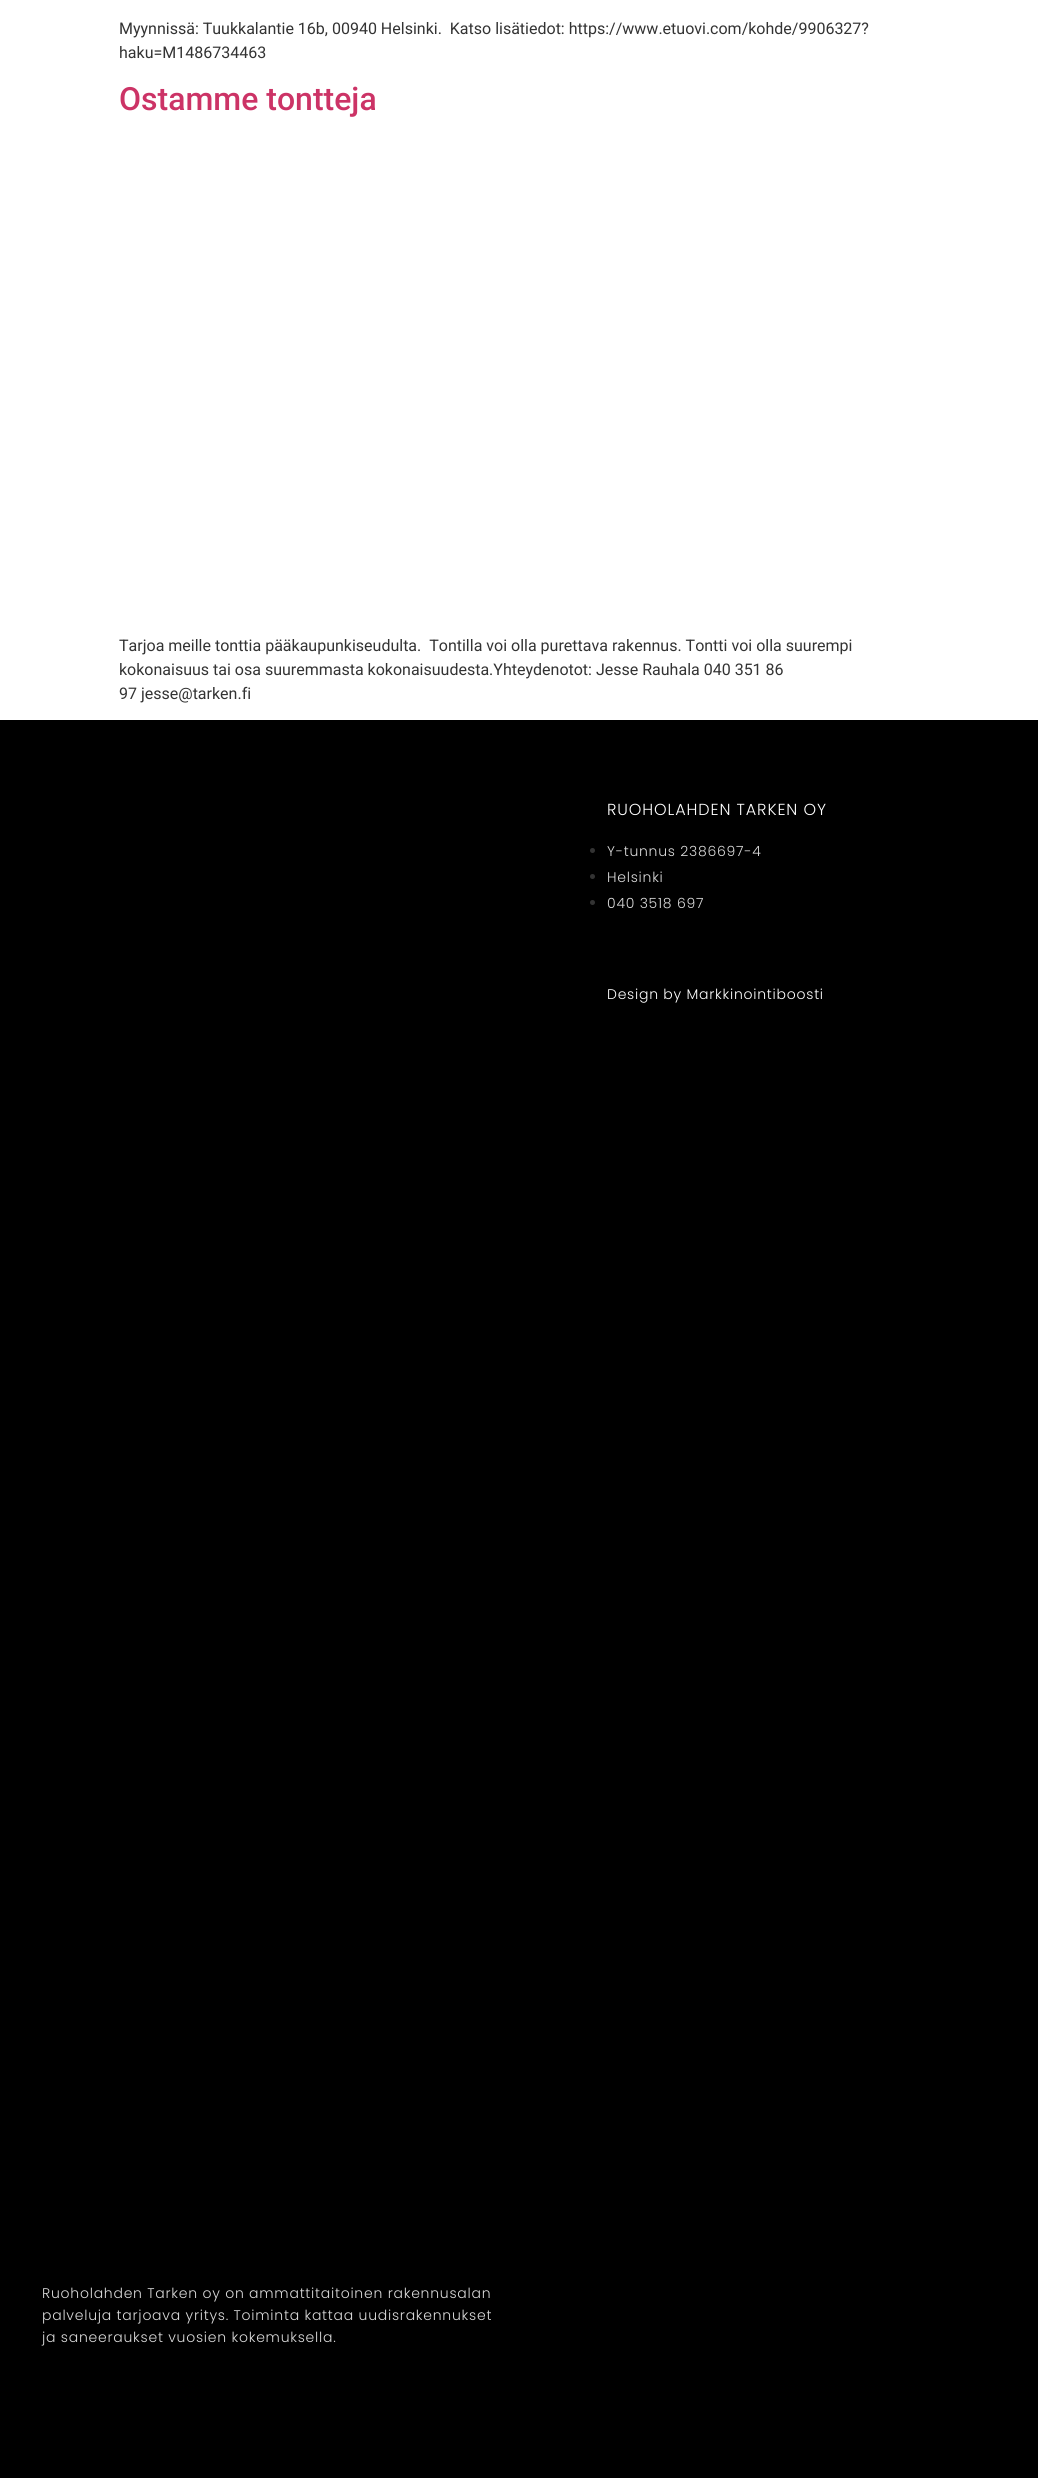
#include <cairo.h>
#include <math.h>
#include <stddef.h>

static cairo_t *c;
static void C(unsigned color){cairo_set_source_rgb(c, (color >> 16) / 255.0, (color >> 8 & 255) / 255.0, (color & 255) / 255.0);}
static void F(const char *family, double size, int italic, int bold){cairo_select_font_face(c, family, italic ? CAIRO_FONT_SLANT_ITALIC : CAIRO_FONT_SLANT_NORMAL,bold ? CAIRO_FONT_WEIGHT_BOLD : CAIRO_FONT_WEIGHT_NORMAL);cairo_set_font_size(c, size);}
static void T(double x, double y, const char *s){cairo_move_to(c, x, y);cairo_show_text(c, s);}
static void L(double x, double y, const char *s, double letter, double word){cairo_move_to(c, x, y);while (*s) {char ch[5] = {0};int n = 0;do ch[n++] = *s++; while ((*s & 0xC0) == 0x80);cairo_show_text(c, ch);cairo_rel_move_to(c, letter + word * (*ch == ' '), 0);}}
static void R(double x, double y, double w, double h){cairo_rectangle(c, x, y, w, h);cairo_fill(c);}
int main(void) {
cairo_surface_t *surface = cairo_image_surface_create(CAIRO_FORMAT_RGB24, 1038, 2478);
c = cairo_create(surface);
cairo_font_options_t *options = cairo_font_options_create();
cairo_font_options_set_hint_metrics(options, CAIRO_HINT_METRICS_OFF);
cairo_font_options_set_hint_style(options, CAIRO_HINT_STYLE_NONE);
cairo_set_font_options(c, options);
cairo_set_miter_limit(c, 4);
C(0xffffff);
cairo_paint(c);
F("Roboto",16,0,0);
C(0x333333);
T(119,34,"Myynnissä: Tuukkalantie 16b, 00940 Helsinki.  Katso lisätiedot: https://www.etuovi.com/kohde/9906327?");
T(119,58,"haku=M1486734463");
F("Roboto Medium",32,0,0);
C(0xcc3366);
T(119,110,"Ostamme tontteja");
F("Roboto",16,0,0);
C(0x333333);
T(119,651,"Tarjoa meille tonttia pääkaupunkiseudulta.  Tontilla voi olla purettava rakennus. Tontti voi olla suurempi");
T(119,675,"kokonaisuus tai osa suuremmasta kokonaisuudesta.Yhteydenotot: Jesse Rauhala 040 351 86");
T(119,699,"97 jesse@tarken.fi");
C(0x000000);
R(0,720,1038,1758);
F("Poppins Light",16,0,0);
C(0xffffff);
L(607,815,"RUOHOLAHDEN TARKEN OY",.9,0);
C(0x333333);
cairo_new_path(c);
cairo_arc(c,592.5,850.5,2.5,0,2 * M_PI);
cairo_fill(c);
F("Poppins Light",14,0,0);
C(0xdadada);
L(607,856,"Y-tunnus 2386697-4",.75,0);
C(0x333333);
cairo_new_path(c);
cairo_arc(c,592.5,876.5,2.5,0,2 * M_PI);
cairo_fill(c);
C(0xdadada);
L(607,882,"Helsinki",.75,0);
C(0x333333);
cairo_new_path(c);
cairo_arc(c,592.5,902.5,2.5,0,2 * M_PI);
cairo_fill(c);
C(0xdadada);
L(607,908,"040 3518 697",.75,0);
C(0xffffff);
L(607,999,"Design by Markkinointiboosti",.75,0);
C(0xdadada);
L(42,2298,"Ruoholahden Tarken oy on ammattitaitoinen rakennusalan",.75,0);
L(42,2320,"palveluja tarjoava yritys. Toiminta kattaa uudisrakennukset",.75,0);
L(42,2342,"ja saneeraukset vuosien kokemuksella.",.75,0);
cairo_surface_write_to_png(surface, "o.png");
cairo_font_options_destroy(options);
cairo_destroy(c);
cairo_surface_destroy(surface);
return 0;
}
